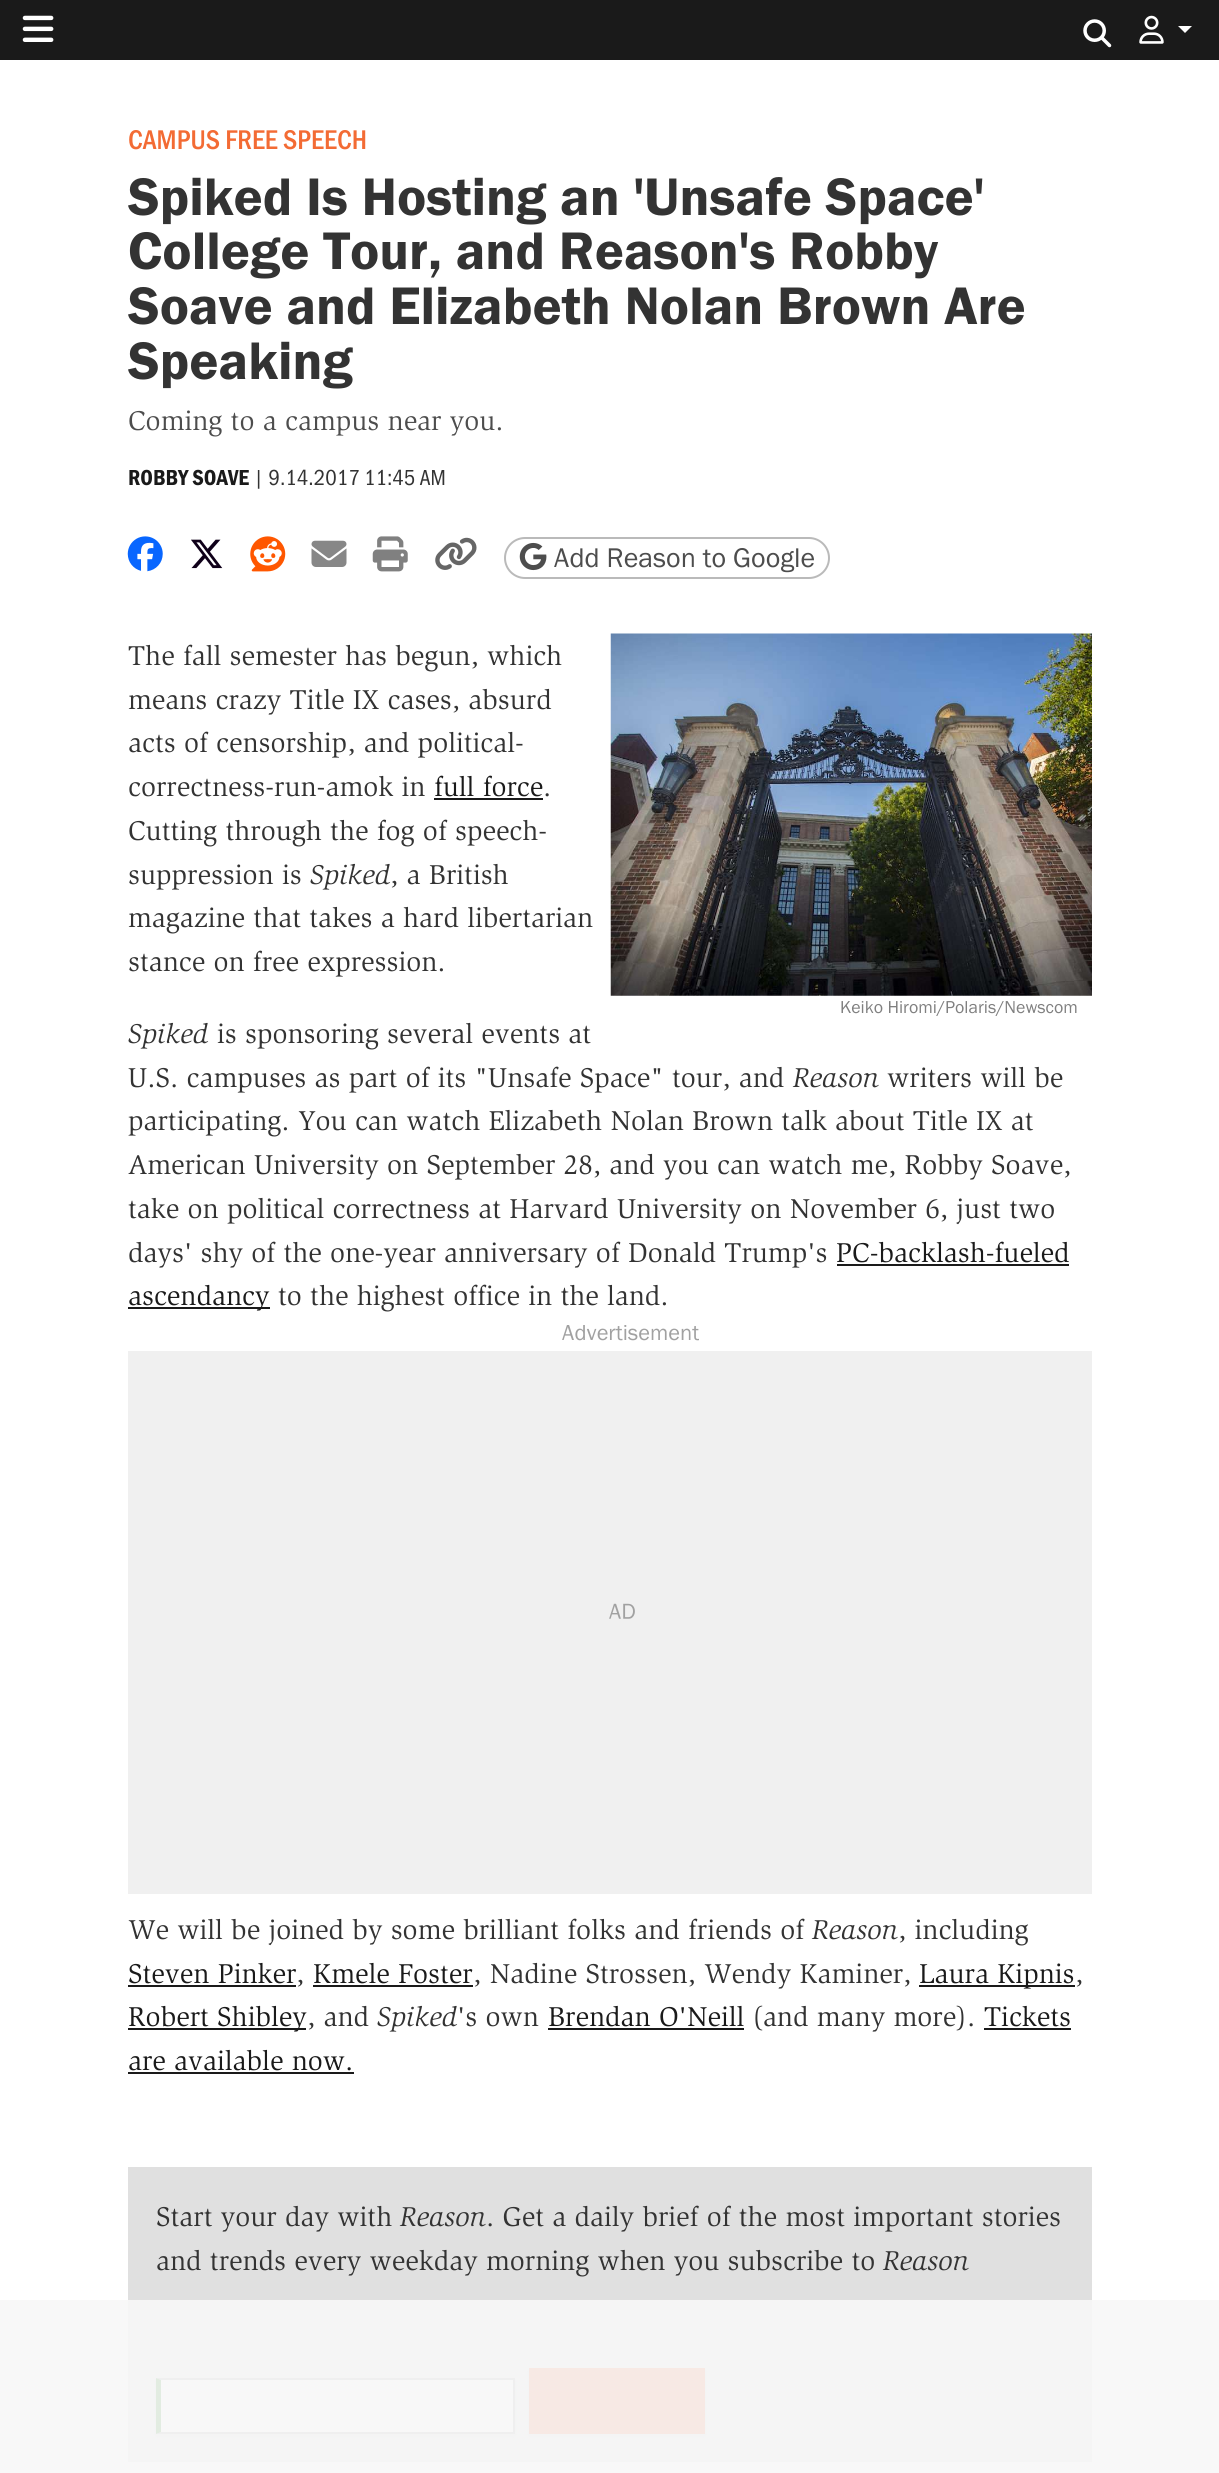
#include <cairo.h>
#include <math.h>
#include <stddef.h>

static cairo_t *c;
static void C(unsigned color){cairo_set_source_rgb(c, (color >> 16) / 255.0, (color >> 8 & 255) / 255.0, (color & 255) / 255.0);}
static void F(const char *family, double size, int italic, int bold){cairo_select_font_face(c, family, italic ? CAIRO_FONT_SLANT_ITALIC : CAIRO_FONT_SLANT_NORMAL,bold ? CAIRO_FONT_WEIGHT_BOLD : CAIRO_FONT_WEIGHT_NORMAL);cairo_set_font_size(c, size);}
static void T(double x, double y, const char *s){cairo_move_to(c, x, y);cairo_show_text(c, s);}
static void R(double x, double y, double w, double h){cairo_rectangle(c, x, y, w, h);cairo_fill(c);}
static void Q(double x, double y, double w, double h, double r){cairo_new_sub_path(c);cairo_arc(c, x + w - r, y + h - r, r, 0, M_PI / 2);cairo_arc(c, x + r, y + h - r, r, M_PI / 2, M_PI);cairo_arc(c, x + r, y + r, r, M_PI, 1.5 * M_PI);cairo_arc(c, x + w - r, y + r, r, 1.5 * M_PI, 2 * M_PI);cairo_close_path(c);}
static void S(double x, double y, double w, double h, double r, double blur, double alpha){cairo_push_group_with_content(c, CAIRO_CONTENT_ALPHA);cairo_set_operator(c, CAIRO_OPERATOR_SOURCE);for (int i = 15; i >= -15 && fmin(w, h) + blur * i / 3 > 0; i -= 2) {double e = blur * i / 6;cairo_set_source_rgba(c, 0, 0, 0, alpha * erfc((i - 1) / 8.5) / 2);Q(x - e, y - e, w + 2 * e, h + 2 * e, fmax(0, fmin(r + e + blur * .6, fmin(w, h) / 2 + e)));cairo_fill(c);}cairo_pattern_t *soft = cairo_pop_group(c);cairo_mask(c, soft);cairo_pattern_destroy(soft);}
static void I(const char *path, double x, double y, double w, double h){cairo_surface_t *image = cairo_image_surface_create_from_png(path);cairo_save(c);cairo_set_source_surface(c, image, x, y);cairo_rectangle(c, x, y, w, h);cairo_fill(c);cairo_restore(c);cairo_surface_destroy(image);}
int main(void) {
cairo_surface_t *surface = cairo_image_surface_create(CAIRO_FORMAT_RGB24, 1219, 2473);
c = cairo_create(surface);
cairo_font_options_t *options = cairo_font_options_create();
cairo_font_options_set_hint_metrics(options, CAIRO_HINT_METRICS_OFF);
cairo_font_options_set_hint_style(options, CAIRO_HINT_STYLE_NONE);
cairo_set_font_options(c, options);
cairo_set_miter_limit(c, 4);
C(0xffffff);
cairo_paint(c);
C(0x1a1a1a);
R(0,0,1219,60);
I("1.png",22,15,32,27);
I("2.png",1083,19,29,29);
I("3.png",1139,15,25,29);
C(0xffffff);
cairo_new_path(c);
cairo_move_to(c,1178,26);
cairo_line_to(c,1192,26);
cairo_line_to(c,1185,33);
cairo_close_path(c);
cairo_fill(c);
F("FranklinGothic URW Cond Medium",28,0,0);
C(0xf36b34);
T(128,149,"CAMPUS FREE SPEECH");
F("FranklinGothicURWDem",54.75,0,0);
C(0x333333);
T(128,215,"Spiked Is Hosting an 'Unsafe Space'");
T(128,269,"College Tour, and Reason's Robby");
T(128,324,"Soave and Elizabeth Nolan Brown Are");
T(128,379,"Speaking");
F("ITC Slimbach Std",28,0,0);
C(0x4d4d4d);
T(128,430,"Coming to a campus near you.");
F("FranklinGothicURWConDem",22.5,0,0);
C(0x1a1a1a);
T(128,485,"ROBBY SOAVE");
F("FranklinGothic URW Cond",22.5,0,0);
C(0x333333);
T(253,485,"| 9.14.2017 11:45 AM");
I("4.png",127,536,36,36);
I("5.png",191,539,32,30);
I("6.png",250,536,36,36);
I("7.png",311,540,36,27);
I("8.png",372,536,36,36);
I("9.png",435,537,42,33);
Q(505,538,324,40,20);
C(0xbababa);
cairo_stroke(c);
I("10.png",519,542,28,29);
F("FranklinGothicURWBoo",28,0,0);
C(0x4d4d4d);
T(554,567,"Add Reason to Google");
F("ITC Slimbach Std",28,0,0);
C(0x333333);
T(128,665,"The fall semester has begun, which");
T(128,709,"means crazy Title IX cases, absurd");
T(128,752,"acts of censorship, and political-");
T(128,796,"correctness-run-amok in");
C(0x1a1a1a);
T(434,796,"full force");
R(434,798,109,2);
C(0x333333);
T(543,796,".");
T(128,840,"Cutting through the fog of speech-");
T(128,884,"suppression is");
F("ITC Slimbach Std",28,1,0);
T(310,884,"Spiked");
F("ITC Slimbach Std",28,0,0);
T(390,884,", a British");
T(128,927,"magazine that takes a hard libertarian");
T(128,971,"stance on free expression.");
I("11.png",610,633,482,363);
F("FranklinGothicURWBoo",17.9,0,0);
C(0x808080);
T(840,1013,"Keiko Hiromi/Polaris/Newscom");
F("ITC Slimbach Std",28,1,0);
C(0x333333);
T(128,1043,"Spiked");
F("ITC Slimbach Std",28,0,0);
T(217,1043,"is sponsoring several events at");
T(128,1087,"U.S. campuses as part of its \"Unsafe Space\" tour, and");
F("ITC Slimbach Std",28,1,0);
T(793,1087,"Reason");
F("ITC Slimbach Std",28,0,0);
T(887,1087,"writers will be");
T(128,1130,"participating. You can watch Elizabeth Nolan Brown talk about Title IX at");
T(128,1174,"American University on September 28, and you can watch me, Robby Soave,");
T(128,1218,"take on political correctness at Harvard University on November 6, just two");
T(128,1262,"days' shy of the one-year anniversary of Donald Trump's");
C(0x1a1a1a);
T(836,1262,"PC-backlash-fueled");
R(837,1264,232,2);
R(128,1307,142,2);
T(128,1305,"ascendancy");
C(0x333333);
T(278,1305,"to the highest office in the land.");
C(0xf0f0f0);
R(128,1351,964,543);
F("FranklinGothicURWBoo",22.5,0,0);
C(0xa1a1a1);
T(562,1340,"Advertisement");
I("12.png",609,1603,26,16);
F("ITC Slimbach Std",28,0,0);
C(0x333333);
T(128,1939,"We will be joined by some brilliant folks and friends of");
F("ITC Slimbach Std",28,1,0);
T(812,1939,"Reason");
F("ITC Slimbach Std",28,0,0);
T(898,1939,", including");
C(0x1a1a1a);
T(128,1983,"Steven Pinker");
R(128,1985,168,2);
C(0x333333);
T(296,1983,",");
C(0x1a1a1a);
T(313,1983,"Kmele Foster");
R(313,1985,160,2);
C(0x333333);
T(473,1983,", Nadine Strossen, Wendy Kaminer,");
C(0x1a1a1a);
R(919,1985,156,2);
T(919,1983,"Laura Kipnis");
C(0x333333);
T(1075,1983,",");
C(0x1a1a1a);
R(128,2028,178,2);
T(128,2026,"Robert Shibley");
C(0x333333);
T(307,2026,", and");
F("ITC Slimbach Std",28,1,0);
T(377,2026,"Spiked");
F("ITC Slimbach Std",28,0,0);
T(457,2026,"'s own");
C(0x1a1a1a);
T(548,2026,"Brendan O'Neill");
R(548,2028,196,2);
C(0x333333);
T(752,2026,"(and many more).");
C(0x1a1a1a);
T(984,2026,"Tickets");
R(984,2028,87,2);
T(128,2070,"are available now.");
R(128,2072,226,2);
C(0xe0e0e0);
R(128,2167,964,295);
C(0x333333);
T(156,2226,"Start your day with");
F("ITC Slimbach Std",28,1,0);
T(400,2226,"Reason");
F("ITC Slimbach Std",28,0,0);
T(486,2226,". Get a daily brief of the most important stories");
T(156,2270,"and trends every weekday morning when you subscribe to");
F("ITC Slimbach Std",28,1,0);
T(883,2270,"Reason");
C(0x121961);
S(156,2380,359,56,0,3.5,.08);
C(0xffffff);
R(161,2380,352,52);
C(0xa1a1a1);
cairo_new_path(c);
cairo_move_to(c,156,2378);
cairo_line_to(c,514,2378);
cairo_line_to(c,513,2380);
cairo_line_to(c,161,2380);
cairo_close_path(c);
cairo_fill(c);
R(513,2378,2,56);
cairo_new_path(c);
cairo_move_to(c,514,2434);
cairo_line_to(c,156,2434);
cairo_line_to(c,161,2432);
cairo_line_to(c,513,2432);
cairo_close_path(c);
cairo_fill(c);
C(0x1a8419);
cairo_new_path(c);
cairo_move_to(c,156,2434);
cairo_line_to(c,156,2378);
cairo_line_to(c,161,2380);
cairo_line_to(c,161,2432);
cairo_close_path(c);
cairo_fill(c);
C(0x121961);
S(529,2370,176,66,0,3.5,.08);
C(0xf36b34);
R(529,2368,176,66);
cairo_set_source_rgba(c,0.969,0.969,0.969,0.9);
R(0,2300,1219,173);
cairo_surface_write_to_png(surface, "o.png");
cairo_font_options_destroy(options);
cairo_destroy(c);
cairo_surface_destroy(surface);
return 0;
}
